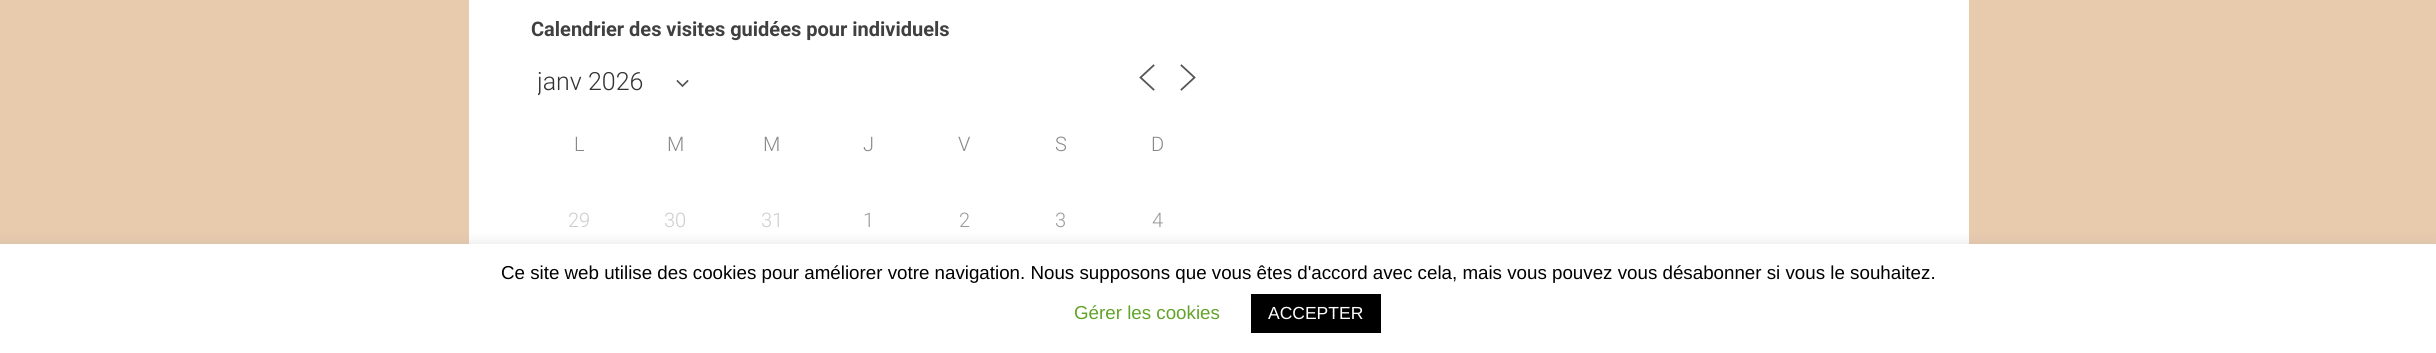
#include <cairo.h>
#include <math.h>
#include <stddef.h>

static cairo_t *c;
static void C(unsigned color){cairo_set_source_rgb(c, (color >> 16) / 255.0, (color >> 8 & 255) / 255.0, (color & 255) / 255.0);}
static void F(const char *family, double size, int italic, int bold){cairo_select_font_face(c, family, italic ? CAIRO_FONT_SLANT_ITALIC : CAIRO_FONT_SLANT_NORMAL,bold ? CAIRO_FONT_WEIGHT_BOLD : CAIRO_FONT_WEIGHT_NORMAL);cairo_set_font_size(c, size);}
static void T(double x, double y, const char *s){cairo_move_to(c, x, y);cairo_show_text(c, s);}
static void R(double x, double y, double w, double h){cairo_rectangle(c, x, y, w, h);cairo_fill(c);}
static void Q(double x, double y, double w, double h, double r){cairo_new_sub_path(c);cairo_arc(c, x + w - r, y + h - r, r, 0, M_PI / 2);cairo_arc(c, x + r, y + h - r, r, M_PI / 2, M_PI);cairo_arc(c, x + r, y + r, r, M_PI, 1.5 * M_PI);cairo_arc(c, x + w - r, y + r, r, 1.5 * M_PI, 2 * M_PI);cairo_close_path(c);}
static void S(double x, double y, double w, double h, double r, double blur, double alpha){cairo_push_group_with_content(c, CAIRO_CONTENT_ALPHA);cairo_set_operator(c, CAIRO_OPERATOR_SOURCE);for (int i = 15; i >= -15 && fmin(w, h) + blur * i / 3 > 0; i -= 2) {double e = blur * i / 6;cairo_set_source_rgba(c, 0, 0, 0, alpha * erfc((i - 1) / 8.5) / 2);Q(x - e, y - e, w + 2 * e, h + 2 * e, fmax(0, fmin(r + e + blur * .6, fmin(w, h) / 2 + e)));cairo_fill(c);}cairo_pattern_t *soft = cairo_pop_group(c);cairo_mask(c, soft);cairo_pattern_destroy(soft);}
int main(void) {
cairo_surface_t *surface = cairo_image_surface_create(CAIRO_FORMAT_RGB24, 2436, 353);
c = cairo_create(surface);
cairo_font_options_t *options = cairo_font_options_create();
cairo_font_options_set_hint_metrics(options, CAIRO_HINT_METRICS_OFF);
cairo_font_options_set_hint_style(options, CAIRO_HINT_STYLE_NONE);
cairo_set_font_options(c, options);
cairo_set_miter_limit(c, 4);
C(0xe8caad);
cairo_paint(c);
C(0xffffff);
R(469,0,1500,244);
F("Roboto",20,0,1);
C(0x404040);
T(531,36,"Calendrier des visites guidées pour individuels");
cairo_new_path(c);
cairo_move_to(c,677.5,81);
cairo_line_to(c,682.5,86);
cairo_line_to(c,687.5,81);
C(0x555555);
cairo_set_line_width(c,1.7);
cairo_set_line_cap(c,CAIRO_LINE_CAP_SQUARE);
cairo_stroke(c);
cairo_save(c);
cairo_rectangle(c,538,66,151,30);
cairo_clip(c);
F("Roboto Light",25,0,0);
C(0x333333);
T(537,90,"janv 2026");
cairo_restore(c);
cairo_new_path(c);
cairo_move_to(c,1153.5,89.5);
cairo_line_to(c,1140.5,77.5);
cairo_line_to(c,1153.5,65.5);
cairo_move_to(c,1181.5,89.5);
cairo_line_to(c,1194.5,77.5);
cairo_line_to(c,1181.5,65.5);
cairo_set_line_width(c,1.8);
cairo_stroke(c);
F("Roboto Light",20,0,0);
C(0x888888);
T(574,151,"L");
T(667,151,"M");
T(763,151,"M");
T(863,151,"J");
T(958,151,"V");
T(1055,151,"S");
T(1151,151,"D");
C(0xcccccc);
T(568,227,"29");
T(664,227,"30");
T(761,227,"31");
C(0x999999);
T(863,227,"1");
T(959,227,"2");
T(1055,227,"3");
T(1152,227,"4");
C(0xacabab);
S(0,243,2436,110,0,6,.3);
C(0xffffff);
R(0,244,2436,109);
F("Liberation Sans",18.75,0,0);
C(0x000000);
T(501,279,"Ce site web utilise des cookies pour améliorer votre navigation. Nous supposons que vous êtes d'accord avec cela, mais vous pouvez vous désabonner si vous le souhaitez.");
C(0x62a329);
T(1074,319,"Gérer les cookies");
C(0x000000);
R(1251,294,130,39);
F("Liberation Sans",17.5,0,0);
C(0xffffff);
T(1268,319,"ACCEPTER");
cairo_surface_write_to_png(surface, "o.png");
cairo_font_options_destroy(options);
cairo_destroy(c);
cairo_surface_destroy(surface);
return 0;
}
